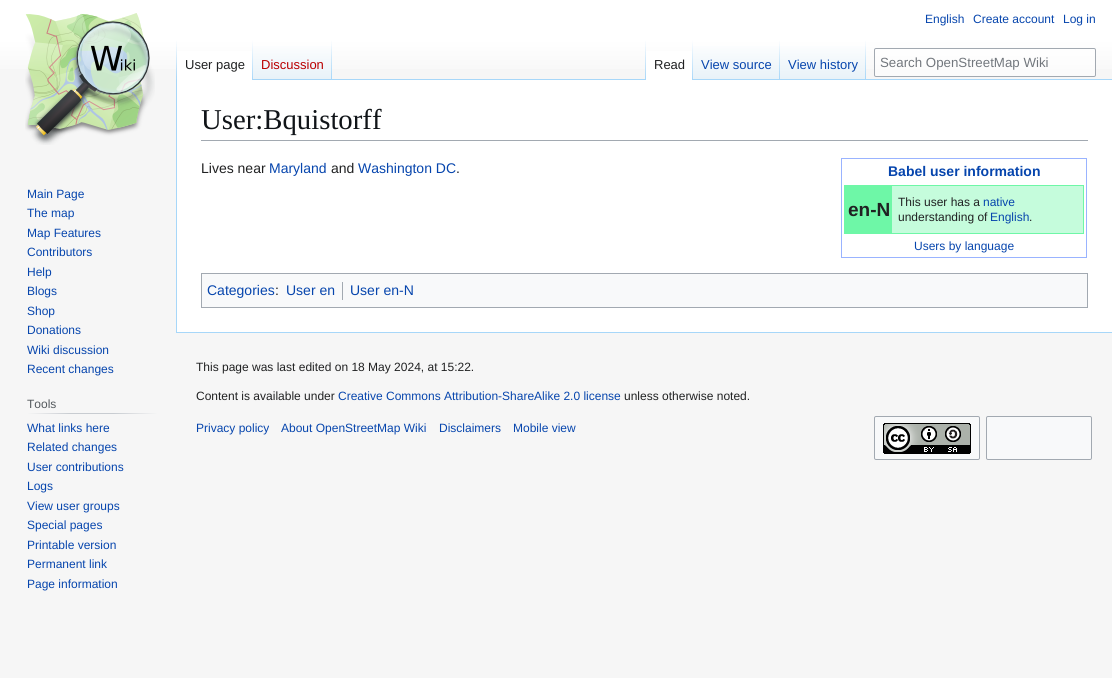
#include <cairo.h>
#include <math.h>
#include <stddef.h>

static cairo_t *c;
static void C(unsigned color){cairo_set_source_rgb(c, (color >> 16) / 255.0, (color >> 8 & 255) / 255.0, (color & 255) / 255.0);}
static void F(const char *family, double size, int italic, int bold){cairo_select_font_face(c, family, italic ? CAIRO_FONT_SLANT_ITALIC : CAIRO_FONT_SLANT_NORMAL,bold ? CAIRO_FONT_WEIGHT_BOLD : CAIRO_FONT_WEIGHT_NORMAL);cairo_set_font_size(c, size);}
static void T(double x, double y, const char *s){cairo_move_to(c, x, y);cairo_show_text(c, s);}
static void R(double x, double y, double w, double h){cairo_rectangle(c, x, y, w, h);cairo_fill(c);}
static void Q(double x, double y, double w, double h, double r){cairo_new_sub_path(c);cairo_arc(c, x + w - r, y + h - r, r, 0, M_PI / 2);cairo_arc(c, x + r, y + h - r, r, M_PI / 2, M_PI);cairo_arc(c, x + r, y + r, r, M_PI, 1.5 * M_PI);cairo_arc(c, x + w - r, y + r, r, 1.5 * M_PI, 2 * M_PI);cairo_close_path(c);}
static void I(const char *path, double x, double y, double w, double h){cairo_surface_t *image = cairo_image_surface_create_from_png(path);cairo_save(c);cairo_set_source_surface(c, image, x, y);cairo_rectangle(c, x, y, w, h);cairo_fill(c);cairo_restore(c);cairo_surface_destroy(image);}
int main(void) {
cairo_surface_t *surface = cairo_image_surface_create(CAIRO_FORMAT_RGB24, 1112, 678);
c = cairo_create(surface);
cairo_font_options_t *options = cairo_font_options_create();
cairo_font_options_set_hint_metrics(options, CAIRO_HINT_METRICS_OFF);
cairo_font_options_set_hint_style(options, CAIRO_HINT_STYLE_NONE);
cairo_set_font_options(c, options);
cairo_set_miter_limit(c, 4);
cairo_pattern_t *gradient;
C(0xf6f6f6);
cairo_paint(c);
gradient = cairo_pattern_create_linear(556,0,556,80);
cairo_pattern_add_color_stop_rgba(gradient,.5,1,1,1,1);
cairo_pattern_add_color_stop_rgba(gradient,1,0.965,0.965,0.965,1);
cairo_set_source(c,gradient);
cairo_pattern_destroy(gradient);
R(0,0,1112,69);
F("Liberation Sans",12,0,0);
C(0x0645ad);
T(925,23,"English");
T(973,23,"Create account");
T(1063,23,"Log in");
C(0xa7d7f9);
R(176,332,936,1);
R(176,79,1,254);
gradient = cairo_pattern_create_linear(177,40,177,80);
cairo_pattern_add_color_stop_rgba(gradient,0,0.655,0.843,0.976,0);
cairo_pattern_add_color_stop_rgba(gradient,1,0.655,0.843,0.976,1);
cairo_set_source(c,gradient);
cairo_pattern_destroy(gradient);
R(176,40,1,40);
C(0xffffff);
R(177,51,75,29);
gradient = cairo_pattern_create_linear(253,40,253,80);
cairo_pattern_add_color_stop_rgba(gradient,0,1,1,1,1);
cairo_pattern_add_color_stop_rgba(gradient,1,0.655,0.843,0.976,1);
cairo_set_source(c,gradient);
cairo_pattern_destroy(gradient);
R(252,40,1,40);
F("Liberation Sans",13,0,0);
C(0x202122);
T(185,69,"User page");
gradient = cairo_pattern_create_linear(293,80,293,40);
cairo_pattern_add_color_stop_rgba(gradient,0,0.467,0.757,0.965,1);
cairo_pattern_add_color_stop_rgba(gradient,.03,0.91,0.949,0.973,1);
cairo_pattern_add_color_stop_rgba(gradient,1,1,1,1,1);
cairo_set_source(c,gradient);
cairo_pattern_destroy(gradient);
R(253,46,79,34);
gradient = cairo_pattern_create_linear(332,40,332,80);
cairo_pattern_add_color_stop_rgba(gradient,0,0.655,0.843,0.976,0);
cairo_pattern_add_color_stop_rgba(gradient,1,0.655,0.843,0.976,1);
cairo_set_source(c,gradient);
cairo_pattern_destroy(gradient);
R(331,40,1,40);
C(0xba0000);
T(261,69,"Discussion");
C(0xa7d7f9);
R(332,79,780,1);
gradient = cairo_pattern_create_linear(646,40,646,80);
cairo_pattern_add_color_stop_rgba(gradient,0,0.655,0.843,0.976,0);
cairo_pattern_add_color_stop_rgba(gradient,1,0.655,0.843,0.976,1);
cairo_set_source(c,gradient);
cairo_pattern_destroy(gradient);
R(645,40,1,40);
C(0xffffff);
R(646,51,46,29);
gradient = cairo_pattern_create_linear(693,40,693,80);
cairo_pattern_add_color_stop_rgba(gradient,0,1,1,1,1);
cairo_pattern_add_color_stop_rgba(gradient,1,0.655,0.843,0.976,1);
cairo_set_source(c,gradient);
cairo_pattern_destroy(gradient);
R(692,40,1,40);
C(0x202122);
T(654,69,"Read");
gradient = cairo_pattern_create_linear(737,80,737,40);
cairo_pattern_add_color_stop_rgba(gradient,0,0.467,0.757,0.965,1);
cairo_pattern_add_color_stop_rgba(gradient,.03,0.91,0.949,0.973,1);
cairo_pattern_add_color_stop_rgba(gradient,1,1,1,1,1);
cairo_set_source(c,gradient);
cairo_pattern_destroy(gradient);
R(693,46,87,33);
gradient = cairo_pattern_create_linear(780,40,780,80);
cairo_pattern_add_color_stop_rgba(gradient,0,0.655,0.843,0.976,0);
cairo_pattern_add_color_stop_rgba(gradient,1,0.655,0.843,0.976,1);
cairo_set_source(c,gradient);
cairo_pattern_destroy(gradient);
R(779,40,1,40);
C(0x0645ad);
T(701,69,"View source");
gradient = cairo_pattern_create_linear(823,80,823,40);
cairo_pattern_add_color_stop_rgba(gradient,0,0.467,0.757,0.965,1);
cairo_pattern_add_color_stop_rgba(gradient,.03,0.91,0.949,0.973,1);
cairo_pattern_add_color_stop_rgba(gradient,1,1,1,1,1);
cairo_set_source(c,gradient);
cairo_pattern_destroy(gradient);
R(780,46,86,33);
gradient = cairo_pattern_create_linear(866,40,866,80);
cairo_pattern_add_color_stop_rgba(gradient,0,0.655,0.843,0.976,0);
cairo_pattern_add_color_stop_rgba(gradient,1,0.655,0.843,0.976,1);
cairo_set_source(c,gradient);
cairo_pattern_destroy(gradient);
R(865,40,1,40);
C(0x0645ad);
T(788,69,"View history");
cairo_set_source_rgba(c,1,1,1,0.5);
Q(874.5,48.5,221,28,1.5);
cairo_fill_preserve(c);
C(0xa2a9b1);
cairo_set_line_width(c,1);
cairo_stroke(c);
F("Liberation Sans",13.3,0,0);
C(0x72777d);
T(880,67,"Search OpenStreetMap Wiki");
I("1.png",25,13,130,132);
F("Liberation Sans",12,0,0);
C(0x0645ad);
T(27,198,"Main Page");
T(27,217,"The map");
T(27,237,"Map Features");
T(27,256,"Contributors");
T(27,276,"Help");
T(27,295,"Blogs");
T(27,315,"Shop");
T(27,334,"Donations");
T(27,354,"Wiki discussion");
T(27,373,"Recent changes");
gradient = cairo_pattern_create_linear(27,414,158,414);
cairo_pattern_add_color_stop_rgba(gradient,0,0.965,0.965,0.965,1);
cairo_pattern_add_color_stop_rgba(gradient,.33,0.784,0.8,0.82,1);
cairo_pattern_add_color_stop_rgba(gradient,.66,0.784,0.8,0.82,1);
cairo_pattern_add_color_stop_rgba(gradient,1,0.965,0.965,0.965,1);
cairo_set_source(c,gradient);
cairo_pattern_destroy(gradient);
R(27,413,131,1);
C(0x54595d);
T(27,408,"Tools");
C(0x0645ad);
T(27,432,"What links here");
T(27,451,"Related changes");
T(27,471,"User contributions");
T(27,490,"Logs");
T(27,510,"View user groups");
T(27,529,"Special pages");
T(27,549,"Printable version");
T(27,568,"Permanent link");
T(27,588,"Page information");
C(0xffffff);
R(177,80,935,252);
C(0xa2a9b1);
R(201,140,887,1);
F("Liberation Serif",28.75,0,0);
C(0x101418);
T(201,129,"User:Bquistorff");
F("Liberation Sans",14,0,0);
C(0x202122);
T(201,173,"Lives near");
C(0x0645ad);
T(269,173,"Maryland");
C(0x202122);
T(331,173,"and");
C(0x0645ad);
T(358,173,"Washington DC");
C(0x202122);
T(456,173,".");
cairo_rectangle(c,841.5,158.5,245,99);
C(0x99b3ff);
cairo_stroke(c);
F("Liberation Sans",14,0,1);
C(0x0645ad);
T(888,176,"Babel user information");
cairo_rectangle(c,844.5,185.5,239,48);
C(0x6ef7a7);
cairo_stroke(c);
C(0xc5fcdc);
R(892,186,191,47);
C(0x6ef7a7);
R(845,186,47,47);
F("Liberation Sans",19,0,1);
C(0x202122);
T(848,216,"en-N");
F("Liberation Sans",12,0,0);
T(898,206,"This user has a");
C(0x0645ad);
T(983,206,"native");
C(0x202122);
T(898,221,"understanding of");
C(0x0645ad);
T(990,221,"English");
C(0x202122);
T(1029,221,".");
C(0x0645ad);
T(914,250,"Users by language");
C(0xf8f9fa);
cairo_rectangle(c,201.5,273.5,886,34);
cairo_fill_preserve(c);
C(0xa2a9b1);
cairo_stroke(c);
F("Liberation Sans",14,0,0);
C(0x0645ad);
T(207,295,"Categories");
C(0x202122);
T(275,295,":");
C(0x0645ad);
T(286,295,"User en");
C(0xa2a9b1);
R(342,282,1,18);
C(0x0645ad);
T(350,295,"User en-N");
F("Liberation Sans",12,0,0);
C(0x202122);
T(196,371,"This page was last edited on 18 May 2024, at 15:22.");
T(196,400,"Content is available under");
C(0x0645ad);
T(338,400,"Creative Commons Attribution-ShareAlike 2.0 license");
C(0x202122);
T(624,400,"unless otherwise noted.");
C(0x0645ad);
T(196,432,"Privacy policy");
T(281,432,"About OpenStreetMap Wiki");
T(439,432,"Disclaimers");
T(513,432,"Mobile view");
C(0xf8f9fa);
Q(874.5,416.5,105,43,1.5);
cairo_fill_preserve(c);
C(0xa2a9b1);
cairo_stroke(c);
I("2.png",883,423,88,31);
C(0xf8f9fa);
Q(986.5,416.5,105,43,1.5);
cairo_fill_preserve(c);
C(0xa2a9b1);
cairo_stroke(c);
cairo_surface_write_to_png(surface, "o.png");
cairo_font_options_destroy(options);
cairo_destroy(c);
cairo_surface_destroy(surface);
return 0;
}
